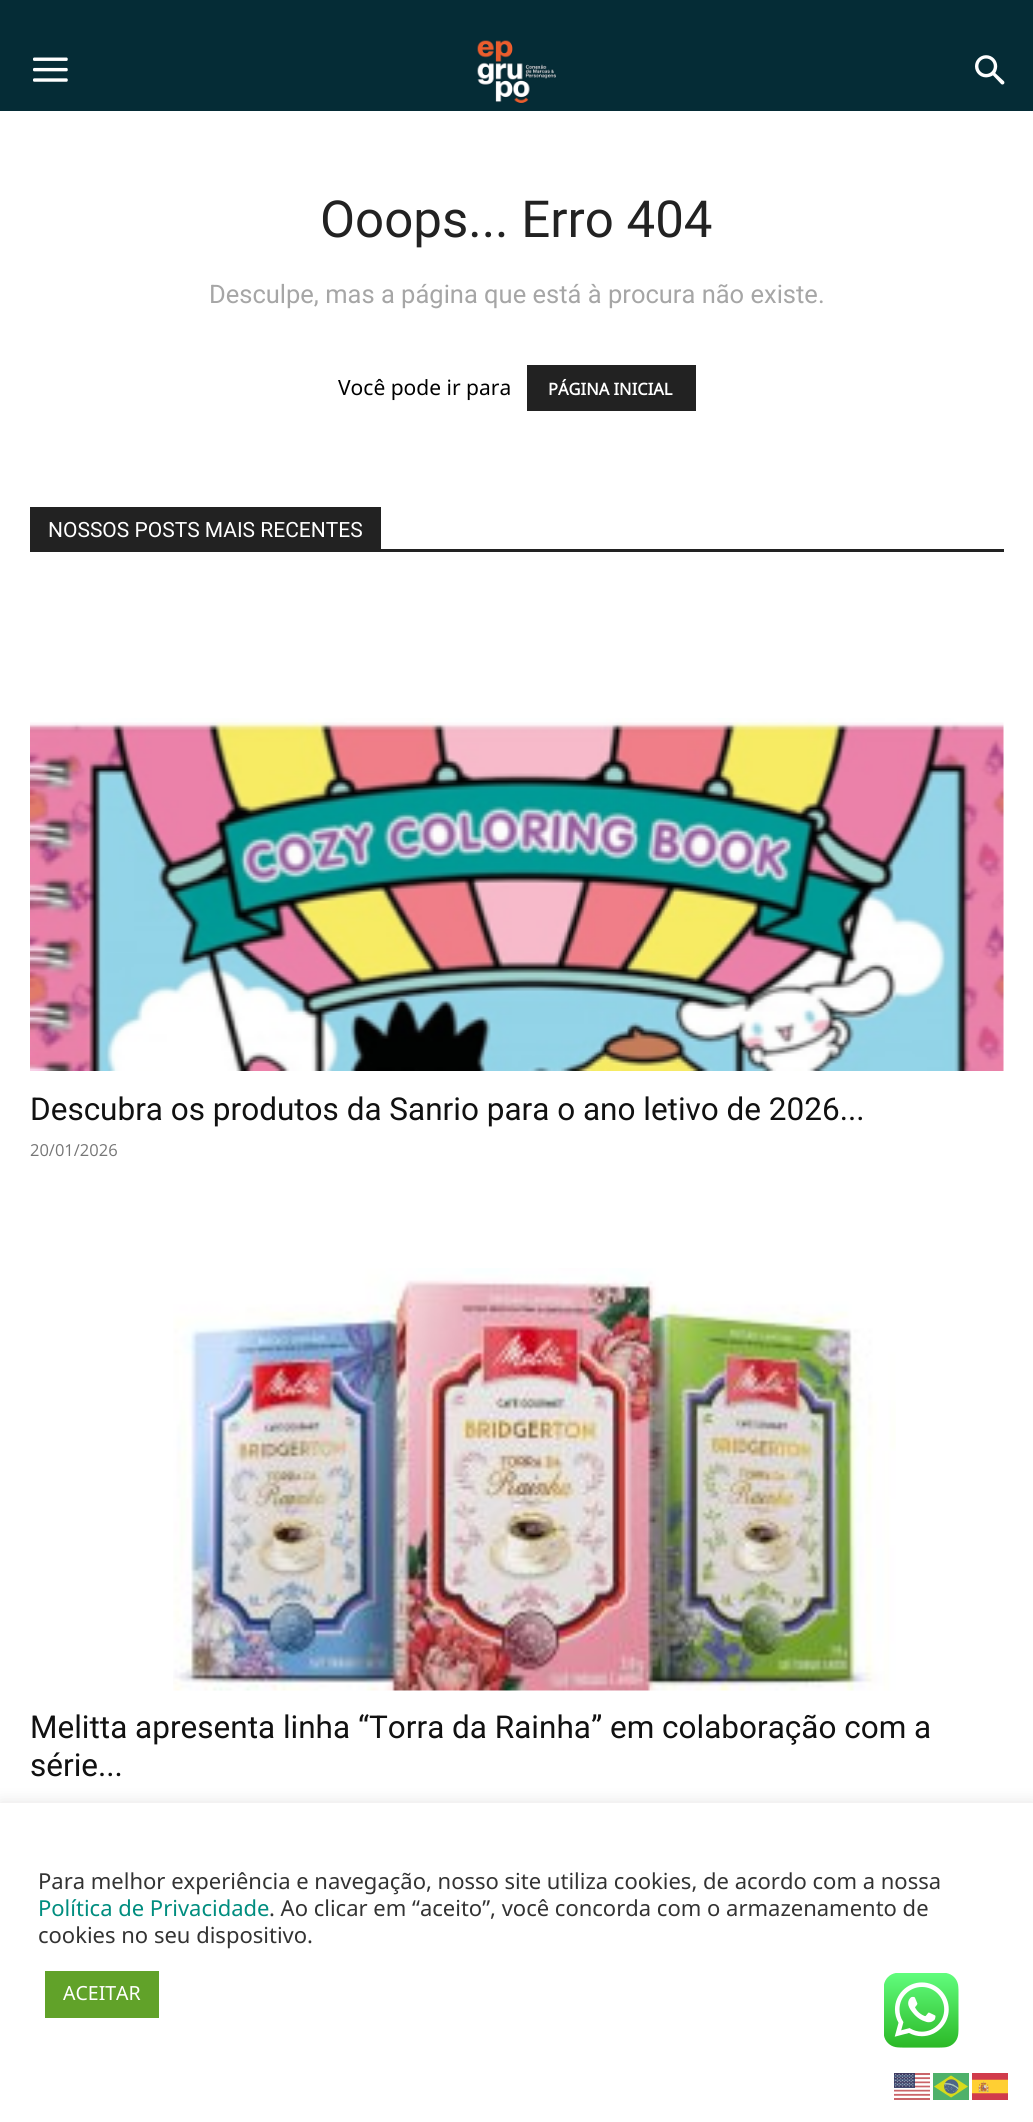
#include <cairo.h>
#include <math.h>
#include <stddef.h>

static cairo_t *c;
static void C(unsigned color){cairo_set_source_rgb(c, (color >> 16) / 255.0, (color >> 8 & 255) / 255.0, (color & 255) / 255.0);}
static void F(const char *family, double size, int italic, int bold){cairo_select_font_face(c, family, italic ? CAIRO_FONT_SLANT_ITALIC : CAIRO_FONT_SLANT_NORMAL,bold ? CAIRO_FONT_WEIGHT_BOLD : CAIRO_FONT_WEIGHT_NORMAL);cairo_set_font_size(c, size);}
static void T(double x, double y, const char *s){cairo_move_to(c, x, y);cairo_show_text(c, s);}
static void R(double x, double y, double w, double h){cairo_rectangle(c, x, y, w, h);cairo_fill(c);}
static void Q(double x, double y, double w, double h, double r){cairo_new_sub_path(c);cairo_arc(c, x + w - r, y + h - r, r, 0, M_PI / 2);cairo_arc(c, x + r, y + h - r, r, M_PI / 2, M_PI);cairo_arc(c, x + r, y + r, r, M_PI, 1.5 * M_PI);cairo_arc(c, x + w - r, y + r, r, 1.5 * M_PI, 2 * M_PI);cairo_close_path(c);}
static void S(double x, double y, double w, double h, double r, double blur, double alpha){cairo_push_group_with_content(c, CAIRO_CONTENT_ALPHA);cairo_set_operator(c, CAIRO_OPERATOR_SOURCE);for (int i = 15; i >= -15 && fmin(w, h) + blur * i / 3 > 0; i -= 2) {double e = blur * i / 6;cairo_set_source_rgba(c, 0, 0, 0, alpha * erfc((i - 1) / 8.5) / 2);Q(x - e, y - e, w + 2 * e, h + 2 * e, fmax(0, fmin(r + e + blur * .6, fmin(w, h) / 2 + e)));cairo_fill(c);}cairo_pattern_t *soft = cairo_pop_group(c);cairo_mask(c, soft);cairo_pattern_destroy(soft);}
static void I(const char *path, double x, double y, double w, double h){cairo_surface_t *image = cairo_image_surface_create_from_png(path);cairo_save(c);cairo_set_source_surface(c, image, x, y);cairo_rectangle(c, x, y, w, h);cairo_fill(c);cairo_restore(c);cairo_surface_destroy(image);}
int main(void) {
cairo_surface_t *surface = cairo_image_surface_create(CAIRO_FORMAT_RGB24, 1033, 2122);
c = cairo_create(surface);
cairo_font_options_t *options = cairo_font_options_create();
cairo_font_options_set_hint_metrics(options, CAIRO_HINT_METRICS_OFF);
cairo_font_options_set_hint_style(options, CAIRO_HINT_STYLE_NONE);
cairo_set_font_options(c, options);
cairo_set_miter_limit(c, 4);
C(0xffffff);
cairo_paint(c);
C(0x052c36);
R(0,0,1033,111);
I("1.png",33,57,35,25);
I("2.png",477,40,79,64);
I("3.png",975,55,30,30);
F("Roboto",51,0,0);
C(0x222222);
T(320,237,"Ooops... Erro 404");
F("Roboto",25.5,0,0);
C(0xa6a6a6);
T(209,303,"Desculpe, mas a página que está à procura não existe.");
F("Noto Sans",21,0,0);
C(0x000000);
T(338,395,"Você pode ir para");
C(0x222222);
R(527,365,169,46);
F("Noto Sans",16.5,0,1);
C(0xffffff);
T(548,395,"PÁGINA INICIAL");
C(0x222222);
R(30,549,974,3);
R(30,507,351,42);
F("Roboto",21,0,0);
C(0xffffff);
T(48,537,"NOSSOS POSTS MAIS RECENTES");
I("4.png",30,718,974,353);
F("Roboto",31.5,0,0);
C(0x111111);
T(30,1120,"Descubra os produtos da Sanrio para o ano letivo de 2026...");
F("Open Sans",16.5,0,0);
C(0x767676);
T(30,1156,"20/01/2026");
I("5.png",173,1268,723,423);
F("Roboto",31.5,0,0);
C(0x111111);
T(30,1738,"Melitta apresenta linha “Torra da Rainha” em colaboração com a");
T(30,1776,"série...");
C(0xacabab);
S(0,1802,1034,319,0,7.5,.3);
C(0xffffff);
R(0,1803,1033,319);
F("Noto Sans",22,0,0);
C(0x333333);
T(38,1889,"Para melhor experiência e navegação, nosso site utiliza cookies, de acordo com a nossa");
C(0x008d7f);
T(38,1916,"Política de Privacidade");
C(0x333333);
T(269,1916,". Ao clicar em “aceito”, você concorda com o armazenamento de");
T(38,1943,"cookies no seu dispositivo.");
C(0x61a229);
R(45,1971,114,47);
F("Noto Sans",19.5,0,0);
C(0xffffff);
T(63,2000,"ACEITAR");
I("6.png",884,1973,75,75);
I("7.png",894,2073,36,27);
I("8.png",933,2073,36,27);
I("9.png",972,2073,36,27);
cairo_surface_write_to_png(surface, "o.png");
cairo_font_options_destroy(options);
cairo_destroy(c);
cairo_surface_destroy(surface);
return 0;
}
